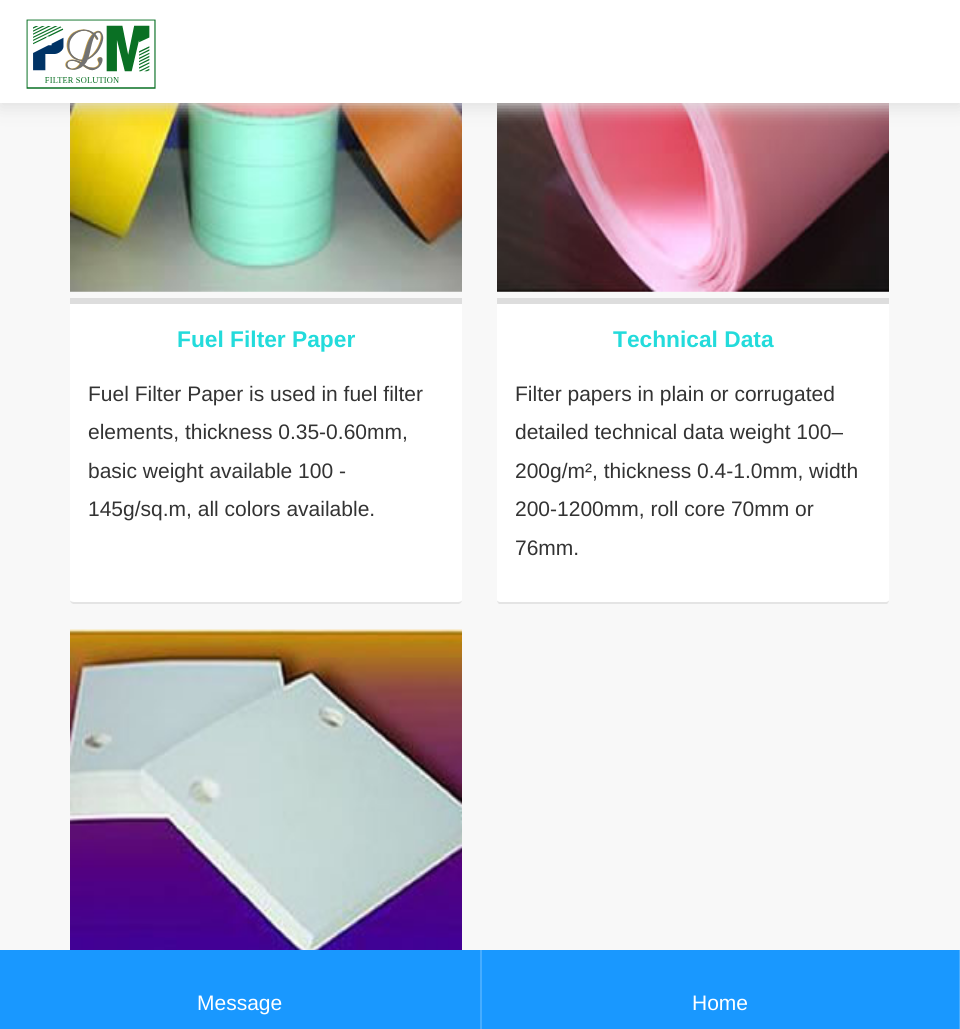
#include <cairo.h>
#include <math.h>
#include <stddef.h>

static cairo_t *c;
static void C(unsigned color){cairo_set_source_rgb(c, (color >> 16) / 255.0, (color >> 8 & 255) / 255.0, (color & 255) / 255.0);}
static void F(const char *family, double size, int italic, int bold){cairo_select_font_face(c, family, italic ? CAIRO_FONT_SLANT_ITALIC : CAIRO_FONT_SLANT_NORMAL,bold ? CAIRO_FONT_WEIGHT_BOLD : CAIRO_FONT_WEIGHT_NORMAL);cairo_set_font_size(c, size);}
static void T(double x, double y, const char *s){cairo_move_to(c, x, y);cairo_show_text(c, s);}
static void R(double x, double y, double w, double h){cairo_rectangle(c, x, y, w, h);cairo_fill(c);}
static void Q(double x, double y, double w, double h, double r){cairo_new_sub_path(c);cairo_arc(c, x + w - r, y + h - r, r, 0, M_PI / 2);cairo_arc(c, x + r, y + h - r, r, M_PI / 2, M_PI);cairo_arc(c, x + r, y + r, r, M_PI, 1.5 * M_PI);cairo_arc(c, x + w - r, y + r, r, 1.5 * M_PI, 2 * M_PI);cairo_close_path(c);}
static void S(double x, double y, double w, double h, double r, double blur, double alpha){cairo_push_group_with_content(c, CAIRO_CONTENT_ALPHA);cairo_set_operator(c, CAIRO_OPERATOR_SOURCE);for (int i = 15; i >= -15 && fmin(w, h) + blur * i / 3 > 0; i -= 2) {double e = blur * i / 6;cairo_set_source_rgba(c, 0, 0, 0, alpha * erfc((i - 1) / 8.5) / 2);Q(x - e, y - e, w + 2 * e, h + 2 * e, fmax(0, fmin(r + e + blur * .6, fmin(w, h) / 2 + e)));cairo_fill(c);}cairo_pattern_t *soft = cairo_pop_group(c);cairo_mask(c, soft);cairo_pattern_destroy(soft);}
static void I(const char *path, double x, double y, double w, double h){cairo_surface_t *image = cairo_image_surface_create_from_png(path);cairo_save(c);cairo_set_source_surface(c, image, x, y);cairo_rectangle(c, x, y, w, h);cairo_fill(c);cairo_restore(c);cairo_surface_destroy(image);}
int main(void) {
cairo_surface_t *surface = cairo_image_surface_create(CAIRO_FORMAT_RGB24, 960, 1029);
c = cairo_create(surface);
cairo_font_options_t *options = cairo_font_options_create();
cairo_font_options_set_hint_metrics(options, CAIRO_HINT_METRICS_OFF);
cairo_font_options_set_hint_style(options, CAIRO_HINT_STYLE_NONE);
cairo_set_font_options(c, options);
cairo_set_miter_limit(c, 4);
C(0xf8f8f8);
cairo_paint(c);
I("2.png",70,103,392,189);
I("3.png",497,103,392,189);
C(0xdfdfdf);
S(0,4,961,103,0,9,1);
C(0xffffff);
R(0,0,960,103);
I("1.png",26,19,130,70);
cairo_new_path(c);
cairo_move_to(c,70,298);
cairo_line_to(c,462,298);
cairo_line_to(c,462,600);
cairo_curve_to(c,462,602,460,604,458,604);
cairo_line_to(c,74,604);
cairo_curve_to(c,72,604,70,602,70,600);
cairo_close_path(c);
cairo_fill(c);
C(0xdddddd);
R(70,298,392,6);
C(0xe4e4e4);
cairo_new_path(c);
cairo_move_to(c,73,604);
cairo_curve_to(c,71,603,70,602,70,600);
cairo_curve_to(c,70,601,72,602,74,602);
cairo_line_to(c,458,602);
cairo_curve_to(c,460,602,462,601,462,600);
cairo_curve_to(c,462,602,461,603,459,604);
cairo_close_path(c);
cairo_fill(c);
F("Liberation Sans",22.75,0,1);
C(0x23dbdb);
T(177,347,"Fuel Filter Paper");
F("Liberation Sans",21,0,0);
C(0x333333);
T(88,401,"Fuel Filter Paper is used in fuel filter");
T(88,439,"elements, thickness 0.35-0.60mm,");
T(88,478,"basic weight available 100 -");
T(88,516,"145g/sq.m, all colors available.");
C(0xffffff);
cairo_new_path(c);
cairo_move_to(c,497,298);
cairo_line_to(c,889,298);
cairo_line_to(c,889,600);
cairo_curve_to(c,889,602,887,604,885,604);
cairo_line_to(c,501,604);
cairo_curve_to(c,499,604,497,602,497,600);
cairo_close_path(c);
cairo_fill(c);
C(0xdddddd);
R(497,298,392,6);
C(0xe4e4e4);
cairo_new_path(c);
cairo_move_to(c,499,604);
cairo_curve_to(c,498,603,497,602,497,600);
cairo_curve_to(c,497,601,499,602,500,602);
cairo_line_to(c,886,602);
cairo_curve_to(c,887,602,889,601,889,600);
cairo_curve_to(c,889,602,888,603,887,604);
cairo_close_path(c);
cairo_fill(c);
F("Liberation Sans",22.75,0,1);
C(0x23dbdb);
T(613,347,"Technical Data");
F("Liberation Sans",21,0,0);
C(0x333333);
T(515,401,"Filter papers in plain or corrugated");
T(515,439,"detailed technical data weight 100–");
T(515,478,"200g/m², thickness 0.4-1.0mm, width");
T(515,516,"200-1200mm, roll core 70mm or");
T(515,555,"76mm.");
I("4.png",70,629,392,321);
C(0x1998ff);
R(0,950,959,79);
C(0x47adff);
R(480,950,2,79);
C(0xffffff);
T(197,1010,"Message");
C(0x47adff);
R(959,950,1,79);
C(0xffffff);
T(692,1010,"Home");
cairo_surface_write_to_png(surface, "o.png");
cairo_font_options_destroy(options);
cairo_destroy(c);
cairo_surface_destroy(surface);
return 0;
}
